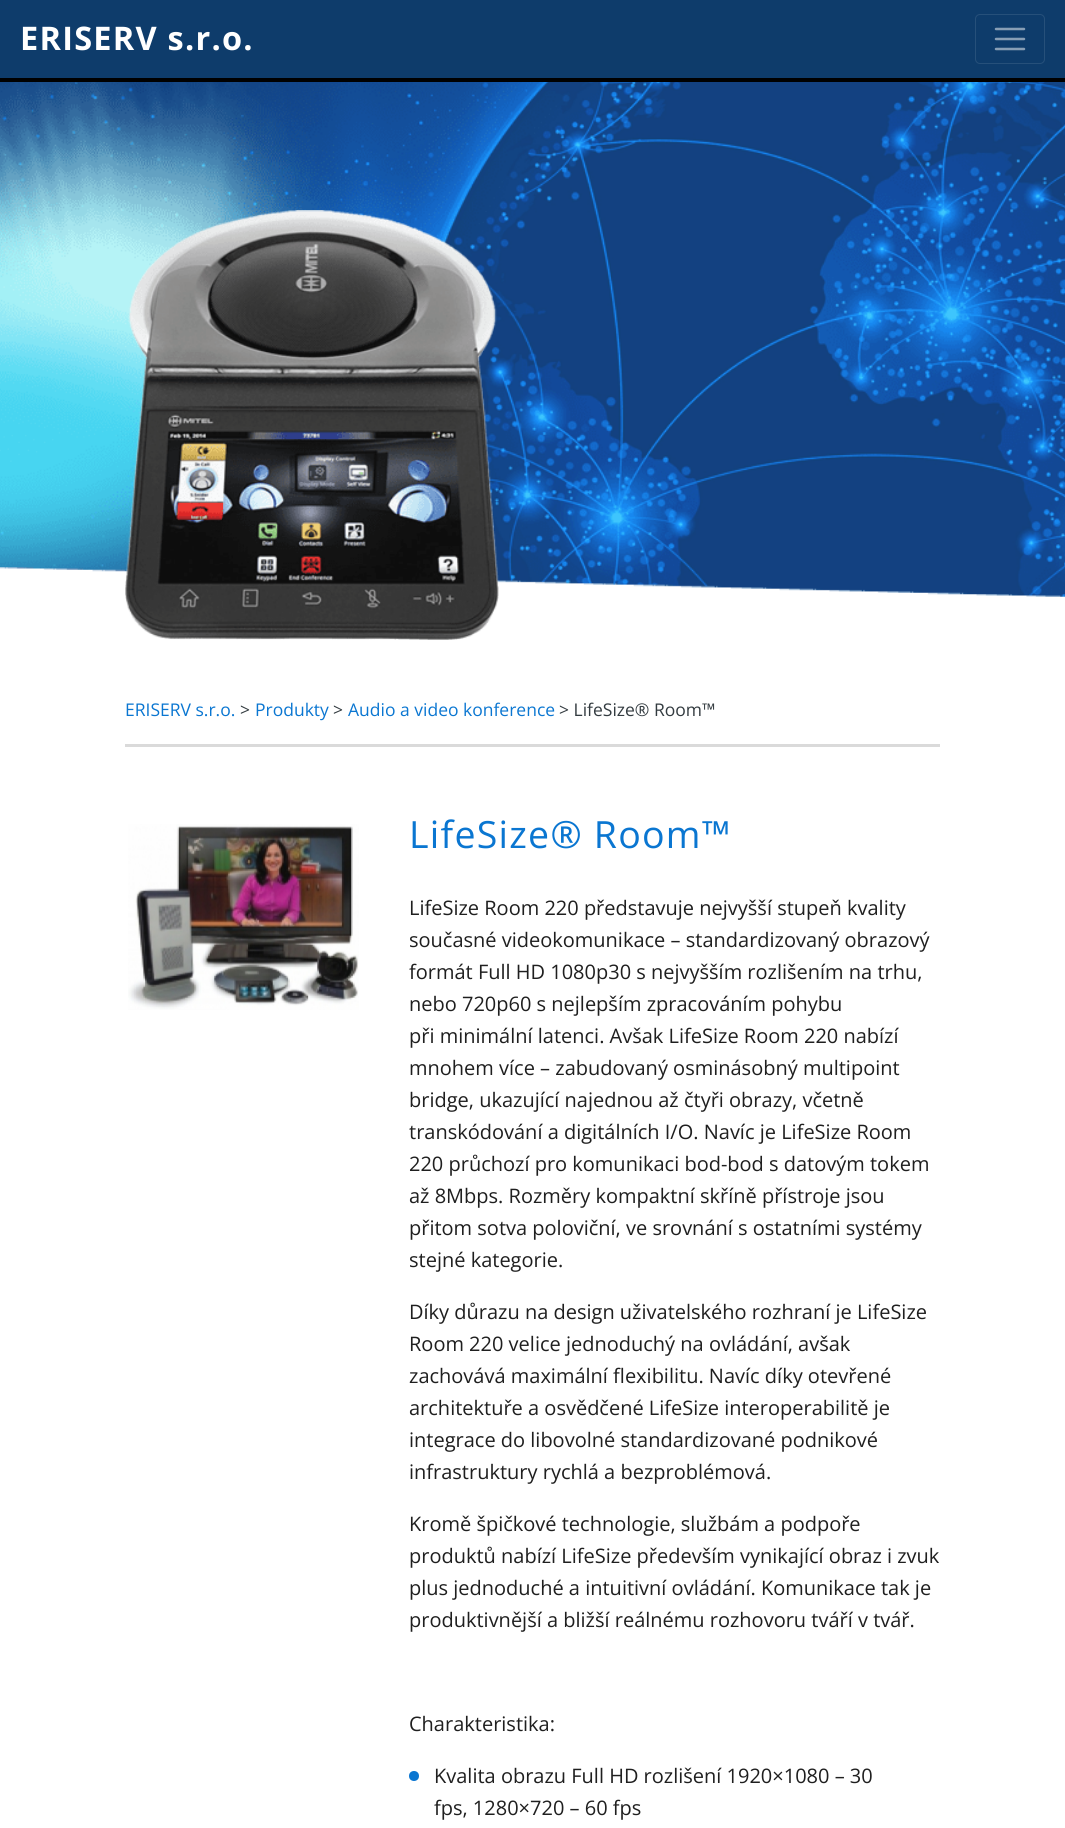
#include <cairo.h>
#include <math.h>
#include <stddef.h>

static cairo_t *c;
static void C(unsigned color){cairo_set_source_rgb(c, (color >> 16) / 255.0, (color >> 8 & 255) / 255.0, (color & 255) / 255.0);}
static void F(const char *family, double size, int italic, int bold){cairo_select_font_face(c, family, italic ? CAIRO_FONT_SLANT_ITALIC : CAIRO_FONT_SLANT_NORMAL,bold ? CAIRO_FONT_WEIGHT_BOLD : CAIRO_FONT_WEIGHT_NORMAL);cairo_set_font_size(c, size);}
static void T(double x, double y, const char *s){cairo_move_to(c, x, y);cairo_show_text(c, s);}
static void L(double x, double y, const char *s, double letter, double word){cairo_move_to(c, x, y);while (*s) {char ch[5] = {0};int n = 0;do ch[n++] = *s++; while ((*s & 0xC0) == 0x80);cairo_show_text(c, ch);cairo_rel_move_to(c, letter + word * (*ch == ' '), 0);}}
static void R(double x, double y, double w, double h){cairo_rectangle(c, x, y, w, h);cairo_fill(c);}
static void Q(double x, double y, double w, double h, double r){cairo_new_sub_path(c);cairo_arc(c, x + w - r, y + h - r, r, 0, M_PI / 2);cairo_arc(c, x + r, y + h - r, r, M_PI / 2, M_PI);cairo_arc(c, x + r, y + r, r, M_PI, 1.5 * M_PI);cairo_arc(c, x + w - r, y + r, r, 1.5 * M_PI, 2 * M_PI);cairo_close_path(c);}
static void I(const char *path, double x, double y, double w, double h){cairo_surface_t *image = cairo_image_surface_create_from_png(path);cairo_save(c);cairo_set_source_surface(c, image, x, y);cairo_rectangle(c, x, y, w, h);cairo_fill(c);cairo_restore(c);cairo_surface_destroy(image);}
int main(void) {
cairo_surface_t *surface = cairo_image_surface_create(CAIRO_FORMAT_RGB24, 1065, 1828);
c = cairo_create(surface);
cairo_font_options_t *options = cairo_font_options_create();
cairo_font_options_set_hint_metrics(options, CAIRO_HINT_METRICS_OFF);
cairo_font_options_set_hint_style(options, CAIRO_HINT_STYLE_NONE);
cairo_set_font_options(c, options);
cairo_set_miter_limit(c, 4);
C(0xffffff);
cairo_paint(c);
C(0x0e3c6b);
R(0,0,1065,78);
C(0x000000);
R(0,78,1065,4);
F("Open Sans",32.5,0,1);
C(0xffffff);
L(20,50,"ERISERV s.r.o.",1.25,0);
Q(975.5,14.5,69,49,4.5);
C(0x26507a);
cairo_set_line_width(c,1);
cairo_stroke(c);
cairo_new_path(c);
cairo_move_to(c,996,29);
cairo_line_to(c,1024,29);
cairo_move_to(c,996,39);
cairo_line_to(c,1024,39);
cairo_move_to(c,996,49);
cairo_line_to(c,1024,49);
C(0x879eb5);
cairo_set_line_width(c,2.5);
cairo_set_line_cap(c,CAIRO_LINE_CAP_ROUND);
cairo_stroke(c);
I("1.png",0,82,1065,515);
I("2.png",125,210,374,430);
C(0xdadada);
R(125,744,815,3);
F("Open Sans",17.5,0,0);
C(0x0a76d1);
T(125,716,"ERISERV s.r.o.");
C(0x333b40);
T(240,716,">");
C(0x0a76d1);
T(255,716,"Produkty");
C(0x333b40);
T(333,716,">");
C(0x0a76d1);
T(348,716,"Audio a video konference");
C(0x333b40);
T(559,716,"> LifeSize® Room™");
I("3.png",128,824,231,186);
F("Open Sans",37.5,0,0);
C(0x0a76d1);
L(409,848,"LifeSize® Room™",1.25,0);
F("Open Sans",20,0,0);
C(0x1f1f1f);
T(409,915,"LifeSize Room 220 představuje nejvyšší stupeň kvality");
T(409,947,"současné videokomunikace – standardizovaný obrazový");
T(409,979,"formát Full HD 1080p30 s nejvyšším rozlišením na trhu,");
T(409,1011,"nebo 720p60 s nejlepším zpracováním pohybu");
T(409,1043,"při minimální latenci. Avšak LifeSize Room 220 nabízí");
T(409,1075,"mnohem více – zabudovaný osminásobný multipoint");
T(409,1107,"bridge, ukazující najednou až čtyři obrazy, včetně");
T(409,1139,"transkódování a digitálních I/O. Navíc je LifeSize Room");
T(409,1171,"220 průchozí pro komunikaci bod-bod s datovým tokem");
T(409,1203,"až 8Mbps. Rozměry kompaktní skříně přístroje jsou");
T(409,1235,"přitom sotva poloviční, ve srovnání s ostatními systémy");
T(409,1267,"stejné kategorie.");
T(409,1319,"Díky důrazu na design uživatelského rozhraní je LifeSize");
T(409,1351,"Room 220 velice jednoduchý na ovládání, avšak");
T(409,1383,"zachovává maximální flexibilitu. Navíc díky otevřené");
T(409,1415,"architektuře a osvědčené LifeSize interoperabilitě je");
T(409,1447,"integrace do libovolné standardizované podnikové");
T(409,1479,"infrastruktury rychlá a bezproblémová.");
T(409,1531,"Kromě špičkové technologie, službám a podpoře");
T(409,1563,"produktů nabízí LifeSize především vynikající obraz i zvuk");
T(409,1595,"plus jednoduché a intuitivní ovládání. Komunikace tak je");
T(409,1627,"produktivnější a bližší reálnému rozhovoru tváří v tvář.");
T(409,1731,"Charakteristika:");
C(0x0a76d1);
cairo_new_path(c);
cairo_arc(c,414,1776,5,0,2 * M_PI);
cairo_fill(c);
C(0x1f1f1f);
T(434,1783,"Kvalita obrazu Full HD rozlišení 1920×1080 – 30");
T(434,1815,"fps, 1280×720 – 60 fps");
cairo_surface_write_to_png(surface, "o.png");
cairo_font_options_destroy(options);
cairo_destroy(c);
cairo_surface_destroy(surface);
return 0;
}
